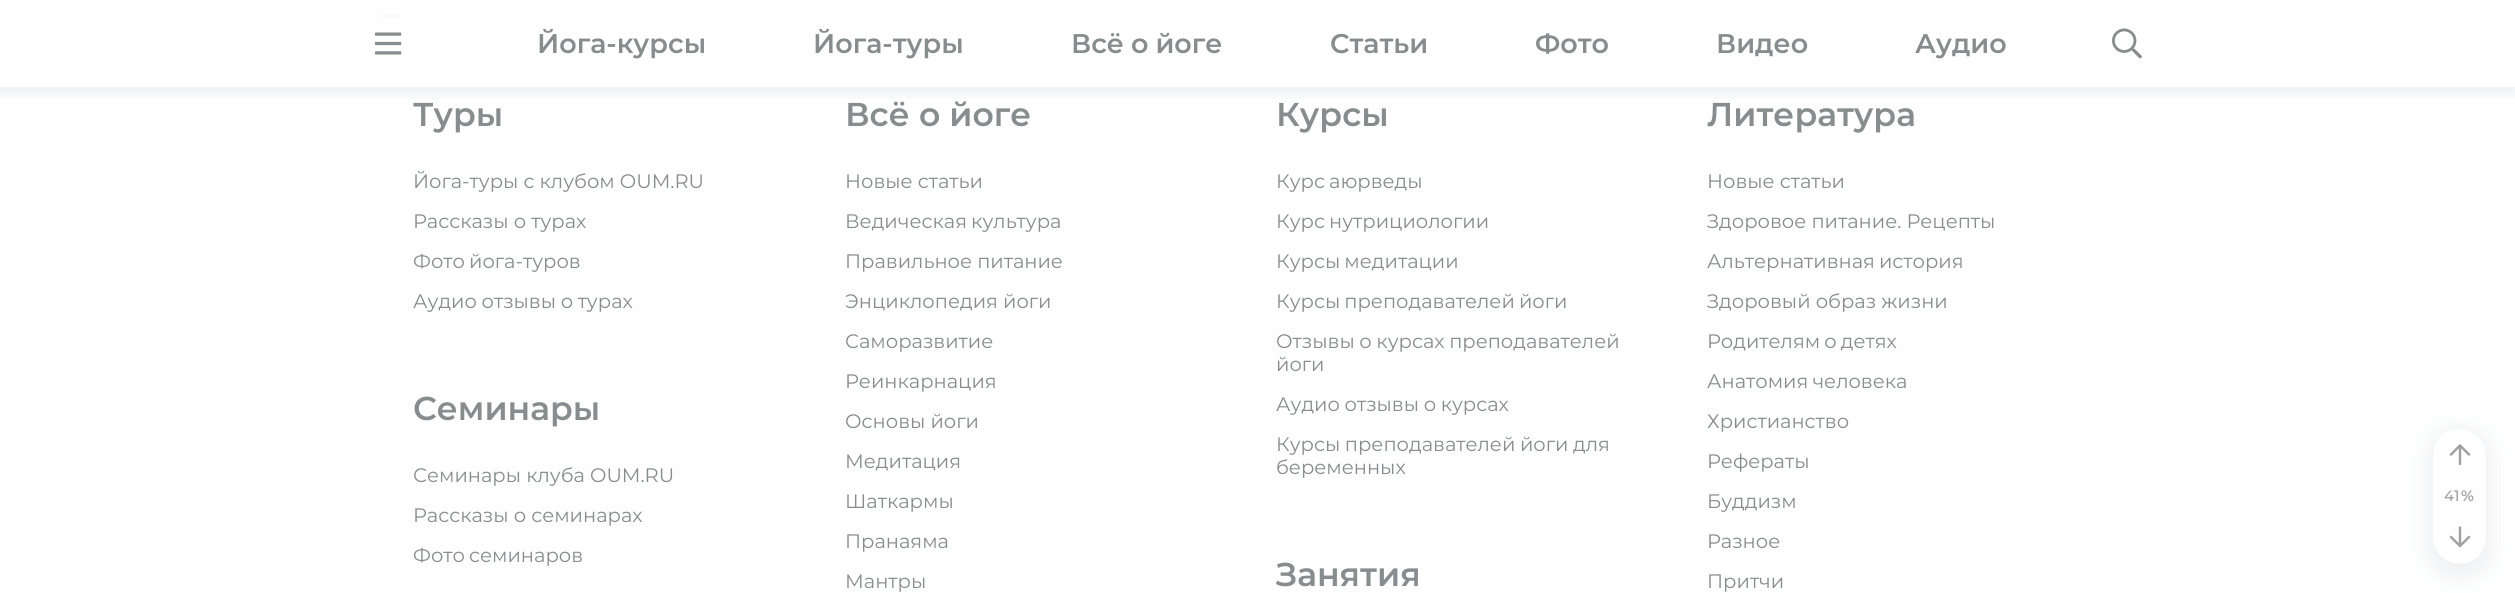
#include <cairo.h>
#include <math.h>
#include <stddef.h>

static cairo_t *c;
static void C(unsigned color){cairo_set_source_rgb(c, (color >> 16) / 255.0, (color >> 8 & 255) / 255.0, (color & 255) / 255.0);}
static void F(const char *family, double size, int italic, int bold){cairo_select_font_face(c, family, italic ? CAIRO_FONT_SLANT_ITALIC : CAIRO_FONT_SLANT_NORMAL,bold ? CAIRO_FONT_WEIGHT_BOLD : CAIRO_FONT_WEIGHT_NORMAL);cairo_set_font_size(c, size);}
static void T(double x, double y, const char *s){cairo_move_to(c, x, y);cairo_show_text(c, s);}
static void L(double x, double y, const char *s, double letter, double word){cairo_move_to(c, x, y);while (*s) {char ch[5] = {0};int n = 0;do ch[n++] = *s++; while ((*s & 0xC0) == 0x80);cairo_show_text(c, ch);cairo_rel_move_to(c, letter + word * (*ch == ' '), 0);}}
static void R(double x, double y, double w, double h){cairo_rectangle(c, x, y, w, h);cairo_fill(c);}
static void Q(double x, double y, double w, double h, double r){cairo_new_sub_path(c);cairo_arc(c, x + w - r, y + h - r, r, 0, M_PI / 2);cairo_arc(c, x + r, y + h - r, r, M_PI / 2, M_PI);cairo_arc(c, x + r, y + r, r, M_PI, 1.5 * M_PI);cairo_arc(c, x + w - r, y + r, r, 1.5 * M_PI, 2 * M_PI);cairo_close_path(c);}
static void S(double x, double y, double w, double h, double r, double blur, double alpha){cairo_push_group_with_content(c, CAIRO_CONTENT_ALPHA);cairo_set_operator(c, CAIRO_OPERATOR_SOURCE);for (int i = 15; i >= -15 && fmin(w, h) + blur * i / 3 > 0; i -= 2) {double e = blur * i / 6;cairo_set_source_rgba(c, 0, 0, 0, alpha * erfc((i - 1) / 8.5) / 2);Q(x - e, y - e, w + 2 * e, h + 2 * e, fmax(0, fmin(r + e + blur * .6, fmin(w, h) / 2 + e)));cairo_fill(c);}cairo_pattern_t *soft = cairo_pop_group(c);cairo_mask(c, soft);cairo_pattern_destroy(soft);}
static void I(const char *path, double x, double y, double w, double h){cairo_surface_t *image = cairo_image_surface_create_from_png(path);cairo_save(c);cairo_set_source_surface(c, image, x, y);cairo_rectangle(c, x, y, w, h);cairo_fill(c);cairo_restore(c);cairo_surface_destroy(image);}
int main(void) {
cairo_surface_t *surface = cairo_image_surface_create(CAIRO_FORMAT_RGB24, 2515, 593);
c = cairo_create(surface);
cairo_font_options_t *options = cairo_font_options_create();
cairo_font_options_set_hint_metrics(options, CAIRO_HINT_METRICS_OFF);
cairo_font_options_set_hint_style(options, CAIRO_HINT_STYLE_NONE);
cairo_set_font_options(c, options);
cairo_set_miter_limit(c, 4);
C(0xfefefe);
cairo_paint(c);
I("3.png",0,0,2515,48);
C(0xf9f9f9);
R(381,15,19,3);
cairo_save(c);
cairo_rectangle(c,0,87,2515,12);
cairo_clip(c);
C(0x001a34);
S(-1,-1,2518,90,0,12,.1);
cairo_restore(c);
I("1.png",375,32,27,23);
F("Montserrat SemiBold",27,0,0);
C(0x878c8e);
T(537,53,"Йога-курсы");
T(813,53,"Йога-туры");
L(1071,53,"Всё о йоге",0,-.5);
T(1330,53,"Статьи");
T(1535,53,"Фото");
T(1716,53,"Видео");
T(1915,53,"Аудио");
I("2.png",2112,28,30,31);
F("Montserrat SemiBold",33,0,0);
T(413,126,"Туры");
F("Montserrat",19.5,0,0);
T(413,188,"Йога-туры с клубом OUM.RU");
T(413,228,"Рассказы о турах");
L(413,268,"Фото йога-туров",0,-1);
L(413,308,"Аудио отзывы о турах",0,-.5);
F("Montserrat SemiBold",33,0,0);
T(413,420,"Семинары");
F("Montserrat",19.5,0,0);
T(413,482,"Семинары клуба OUM.RU");
T(413,522,"Рассказы о семинарах");
L(413,562,"Фото семинаров",0,-1);
F("Montserrat SemiBold",33,0,0);
T(845,126,"Всё о йоге");
F("Montserrat",19.5,0,0);
T(845,188,"Новые статьи");
L(845,228,"Ведическая культура",0,-1);
T(845,268,"Правильное питание");
T(845,308,"Энциклопедия йоги");
T(845,348,"Саморазвитие");
T(845,388,"Реинкарнация");
T(845,428,"Основы йоги");
T(845,468,"Медитация");
T(845,508,"Шаткармы");
T(845,548,"Пранаяма");
T(845,588,"Мантры");
F("Montserrat SemiBold",33,0,0);
T(1276,126,"Курсы");
F("Montserrat",19.5,0,0);
L(1276,188,"Курс аюрведы",0,-1);
L(1276,228,"Курс нутрициологии",0,-1);
L(1276,268,"Курсы медитации",0,-1);
L(1276,308,"Курсы преподавателей йоги",0,-1);
L(1276,348,"Отзывы о курсах преподавателей",0,-.5);
T(1276,371,"йоги");
L(1276,411,"Аудио отзывы о курсах",0,-.5);
L(1276,451,"Курсы преподавателей йоги для",0,-.5);
T(1276,474,"беременных");
F("Montserrat SemiBold",33,0,0);
T(1276,586,"Занятия");
T(1707,126,"Литература");
F("Montserrat",19.5,0,0);
T(1707,188,"Новые статьи");
T(1707,228,"Здоровое питание. Рецепты");
L(1707,268,"Альтернативная история",0,-1);
T(1707,308,"Здоровый образ жизни");
L(1707,348,"Родителям о детях",0,-1);
L(1707,388,"Анатомия человека",0,-1);
T(1707,428,"Христианство");
T(1707,468,"Рефераты");
T(1707,508,"Буддизм");
T(1707,548,"Разное");
T(1707,588,"Притчи");
C(0x7f8c99);
S(2432,434,55,138,27.5,12,.16);
C(0xfefefe);
Q(2433,429,53,135,26.5);
cairo_fill(c);
I("4.png",2449,444,22,21);
F("Montserrat Medium",15,0,0);
C(0xa1a1a1);
T(2444,501,"41");
F("Montserrat SemiBold",15,0,0);
T(2461,501,"%");
I("5.png",2449,526,22,22);
cairo_surface_write_to_png(surface, "o.png");
cairo_font_options_destroy(options);
cairo_destroy(c);
cairo_surface_destroy(surface);
return 0;
}
